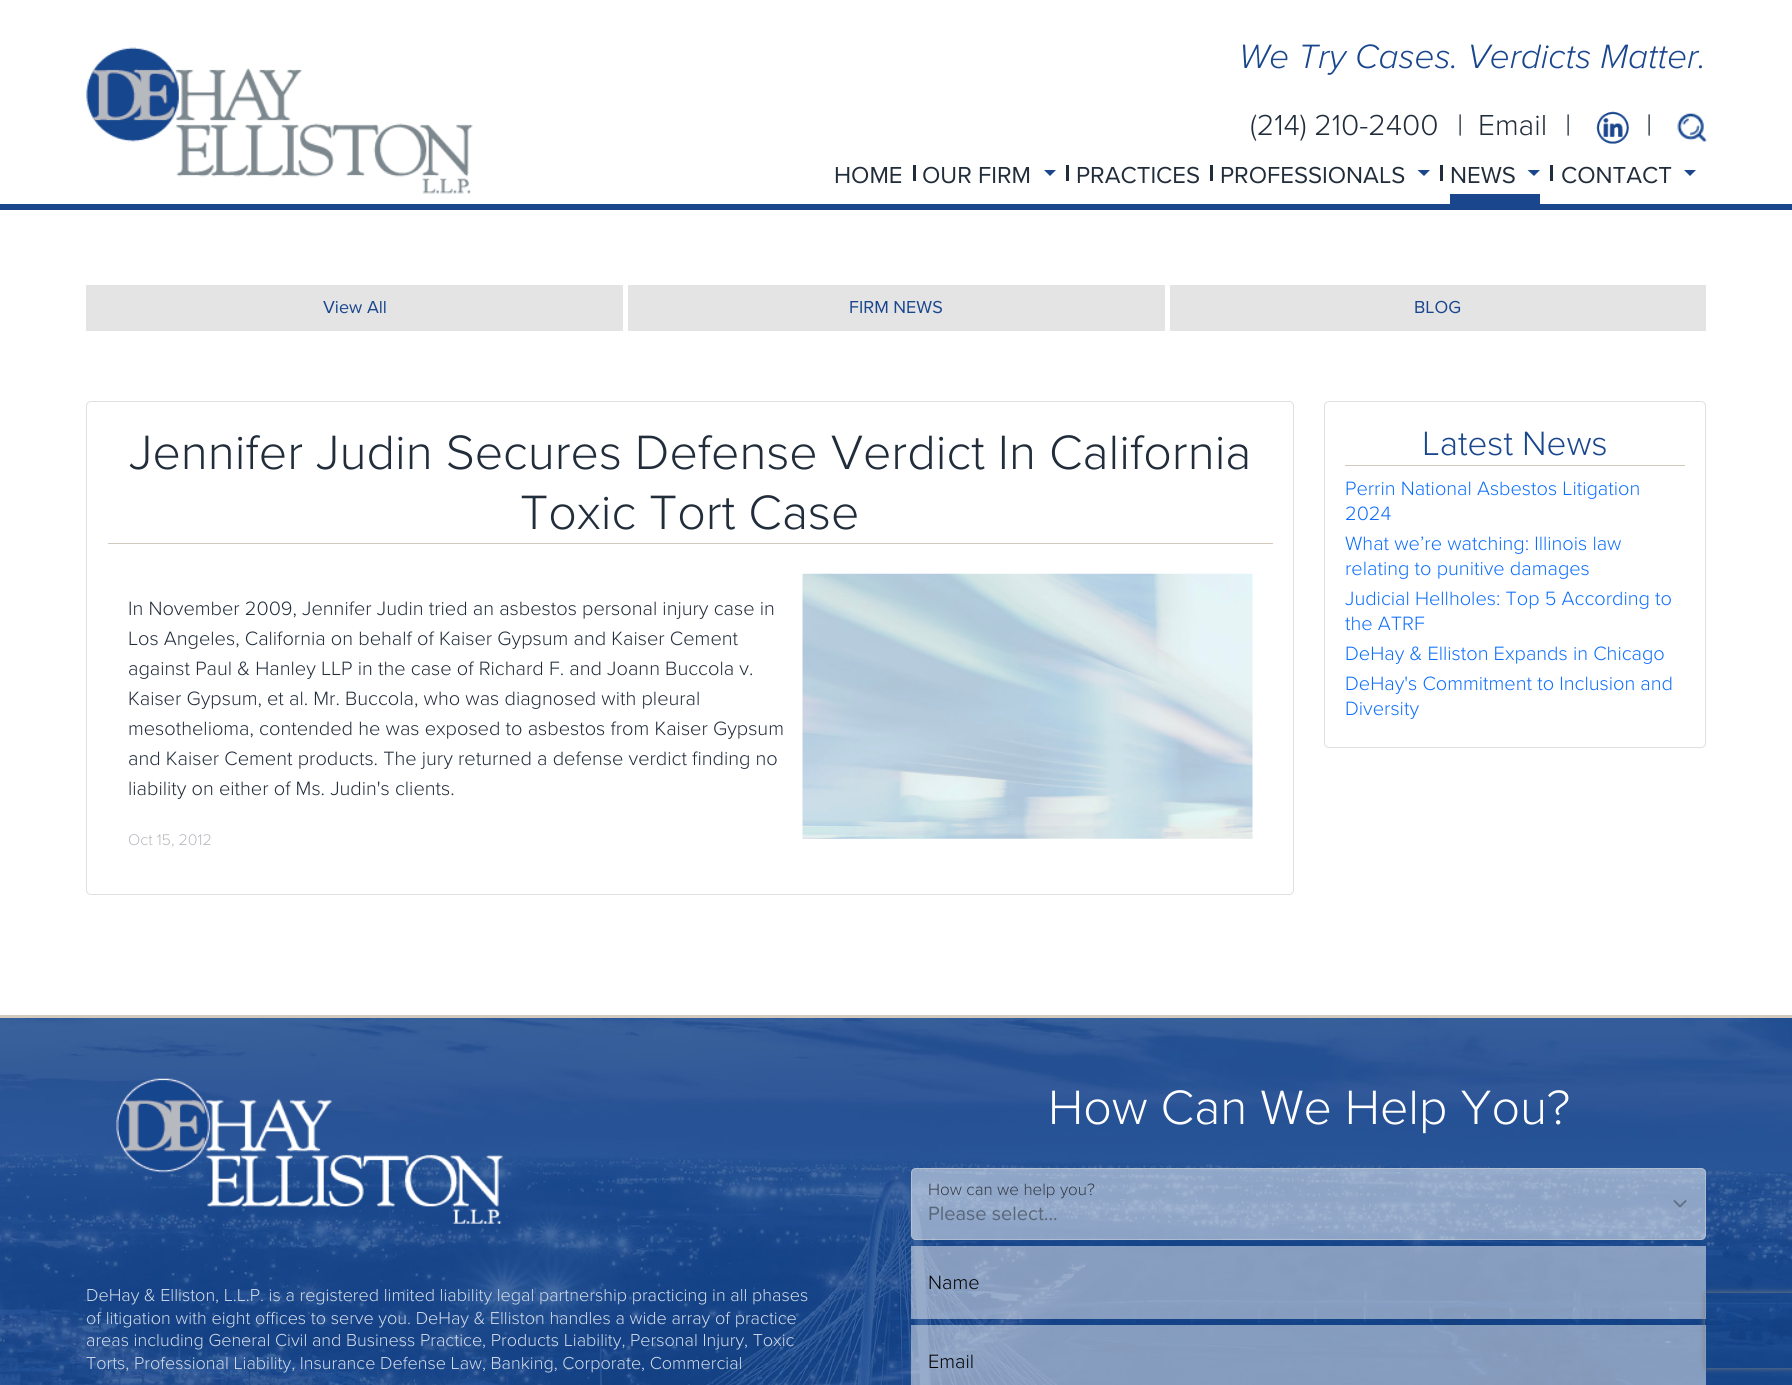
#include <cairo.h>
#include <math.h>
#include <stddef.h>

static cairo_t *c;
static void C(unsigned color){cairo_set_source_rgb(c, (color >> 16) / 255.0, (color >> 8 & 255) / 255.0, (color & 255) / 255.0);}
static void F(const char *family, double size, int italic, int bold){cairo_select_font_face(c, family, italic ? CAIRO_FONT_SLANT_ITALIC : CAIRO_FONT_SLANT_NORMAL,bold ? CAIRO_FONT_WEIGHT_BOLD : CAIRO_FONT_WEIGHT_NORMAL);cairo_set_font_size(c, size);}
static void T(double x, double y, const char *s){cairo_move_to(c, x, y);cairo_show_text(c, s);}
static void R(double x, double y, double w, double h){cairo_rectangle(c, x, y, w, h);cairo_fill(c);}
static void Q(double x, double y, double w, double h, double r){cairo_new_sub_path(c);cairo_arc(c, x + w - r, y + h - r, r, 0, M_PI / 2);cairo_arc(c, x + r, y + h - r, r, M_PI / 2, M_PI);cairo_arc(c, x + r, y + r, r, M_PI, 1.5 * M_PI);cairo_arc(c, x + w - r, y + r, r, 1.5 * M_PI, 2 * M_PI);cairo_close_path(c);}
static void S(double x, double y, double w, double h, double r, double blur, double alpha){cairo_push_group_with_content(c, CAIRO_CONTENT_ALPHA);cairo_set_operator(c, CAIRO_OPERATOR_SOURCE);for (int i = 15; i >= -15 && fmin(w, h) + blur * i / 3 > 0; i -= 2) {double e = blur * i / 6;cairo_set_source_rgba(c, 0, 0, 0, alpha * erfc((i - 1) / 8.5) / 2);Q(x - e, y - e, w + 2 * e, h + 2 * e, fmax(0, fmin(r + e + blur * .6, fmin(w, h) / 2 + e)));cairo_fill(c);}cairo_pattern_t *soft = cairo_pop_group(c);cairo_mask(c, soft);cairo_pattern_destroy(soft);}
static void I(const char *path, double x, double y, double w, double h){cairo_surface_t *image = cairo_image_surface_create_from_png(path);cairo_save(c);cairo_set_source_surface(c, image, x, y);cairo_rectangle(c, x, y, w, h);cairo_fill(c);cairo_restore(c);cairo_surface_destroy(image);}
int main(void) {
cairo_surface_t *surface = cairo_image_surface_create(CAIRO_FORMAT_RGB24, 1792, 1385);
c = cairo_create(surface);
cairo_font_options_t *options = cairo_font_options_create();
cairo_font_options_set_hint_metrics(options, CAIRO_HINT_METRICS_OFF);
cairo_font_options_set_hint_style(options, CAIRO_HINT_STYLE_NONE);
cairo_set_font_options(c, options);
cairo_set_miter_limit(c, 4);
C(0xffffff);
cairo_paint(c);
C(0x19468d);
R(0,204,1792,6);
I("1.png",86,47,387,147);
F("Proxima Nova Light",35,1,0);
T(1239,68,"We Try Cases. Verdicts Matter.");
F("Proxima Nova Light",30,0,0);
C(0x222d3b);
T(1250,135,"(214) 210-2400");
T(1457,135,"|");
T(1478,135,"Email");
T(1565,135,"|");
I("2.png",1596,111,33,33);
T(1646,135,"|");
I("3.png",1677,113,30,29);
F("Proxima Nova",24,0,0);
T(834,183,"HOME");
R(913,165,3,16);
T(922,183,"OUR FIRM");
C(0x19468d);
cairo_new_path(c);
cairo_move_to(c,1044,170);
cairo_line_to(c,1056,170);
cairo_line_to(c,1050,176);
cairo_close_path(c);
cairo_fill(c);
C(0x222d3b);
R(1066,165,3,16);
T(1076,183,"PRACTICES");
R(1210,165,3,16);
T(1220,183,"PROFESSIONALS");
C(0x19468d);
cairo_new_path(c);
cairo_move_to(c,1417.5,170);
cairo_line_to(c,1430,170);
cairo_line_to(c,1424,176);
cairo_close_path(c);
cairo_fill(c);
C(0x222d3b);
R(1440,165,3,16);
C(0x19468d);
R(1450,194,90,10);
C(0x222d3b);
T(1450,183,"NEWS");
C(0x19468d);
cairo_new_path(c);
cairo_move_to(c,1527.5,170);
cairo_line_to(c,1540,170);
cairo_line_to(c,1534,176);
cairo_close_path(c);
cairo_fill(c);
C(0x222d3b);
R(1550,165,3,16);
T(1561,183,"CONTACT");
C(0x19468d);
cairo_new_path(c);
cairo_move_to(c,1684,170);
cairo_line_to(c,1696,170);
cairo_line_to(c,1690,176);
cairo_close_path(c);
cairo_fill(c);
C(0xe4e4e4);
R(86,285,537,46);
F("Proxima Nova",18,0,0);
C(0x19468d);
T(323,313,"View All");
C(0xe4e4e4);
R(628,285,537,46);
C(0x19468d);
T(849,313,"FIRM NEWS");
C(0xe4e4e4);
R(1170,285,536,46);
C(0x19468d);
T(1414,313,"BLOG");
Q(86.5,401.5,1207,493,4.5);
C(0xdfdfdf);
cairo_set_line_width(c,1);
cairo_stroke(c);
C(0xd3cabd);
R(108,543,1165,1);
F("Proxima Nova Light",50,0,0);
C(0x222d3b);
T(129,469,"Jennifer Judin Secures Defense Verdict In California");
T(520,529,"Toxic Tort Case");
F("Proxima Nova Light",20,0,0);
T(128,615,"In November 2009, Jennifer Judin tried an asbestos personal injury case in");
T(128,645,"Los Angeles, California on behalf of Kaiser Gypsum and Kaiser Cement");
T(128,675,"against Paul & Hanley LLP in the case of Richard F. and Joann Buccola v.");
T(128,705,"Kaiser Gypsum, et al. Mr. Buccola, who was diagnosed with pleural");
T(128,735,"mesothelioma, contended he was exposed to asbestos from Kaiser Gypsum");
T(128,765,"and Kaiser Cement products. The jury returned a defense verdict finding no");
T(128,795,"liability on either of Ms. Judin's clients.");
I("4.png",802,573,451,266);
F("Proxima Nova Light",16,0,0);
C(0xb6b9be);
T(128,845,"Oct 15, 2012");
Q(1324.5,401.5,381,346,4.5);
C(0xdfdfdf);
cairo_stroke(c);
C(0xd3cabd);
R(1345,465,340,1);
F("Proxima Nova Light",35,0,0);
C(0x19468d);
T(1422,455,"Latest News");
F("Proxima Nova Light",20,0,0);
C(0x0d6efd);
T(1345,495,"Perrin National Asbestos Litigation");
T(1345,520,"2024");
T(1345,550,"What we’re watching: Illinois law");
T(1345,575,"relating to punitive damages");
T(1345,605,"Judicial Hellholes: Top 5 According to");
T(1345,630,"the ATRF");
T(1345,660,"DeHay & Elliston Expands in Chicago");
T(1345,690,"DeHay's Commitment to Inclusion and");
T(1345,715,"Diversity");
I("5.png",0,1018,1792,367);
C(0xd3cabd);
R(0,1015,1792,3);
I("6.png",116,1078,387,146);
F("Proxima Nova Light",18,0,0);
C(0xd2dbe8);
T(86,1301,"DeHay & Elliston, L.L.P. is a registered limited liability legal partnership practicing in all phases");
T(86,1324,"of litigation with eight offices to serve you. DeHay & Elliston handles a wide array of practice");
T(86,1346,"areas including General Civil and Business Practice, Products Liability, Personal Injury, Toxic");
T(86,1369,"Torts, Professional Liability, Insurance Defense Law, Banking, Corporate, Commercial");
F("Proxima Nova Light",50,0,0);
C(0xffffff);
T(1048,1124,"How Can We Help You?");
cairo_set_source_rgba(c,1,1,1,0.5);
Q(911,1168,795,72,5);
cairo_fill(c);
cairo_new_path(c);
cairo_move_to(c,1674.5,1201);
cairo_line_to(c,1680,1206.5);
cairo_line_to(c,1685.5,1201);
cairo_set_source_rgba(c,0.204,0.227,0.251,0.5);
cairo_set_line_width(c,1.9);
cairo_set_line_cap(c,CAIRO_LINE_CAP_ROUND);
cairo_set_line_join(c,CAIRO_LINE_JOIN_ROUND);
cairo_stroke(c);
Q(911.5,1168.5,794,71,4.5);
cairo_set_source_rgba(c,0.808,0.831,0.855,0.5);
cairo_set_line_width(c,1);
cairo_set_line_cap(c,CAIRO_LINE_CAP_BUTT);
cairo_set_line_join(c,CAIRO_LINE_JOIN_MITER);
cairo_stroke(c);
F("Proxima Nova Light",17,0,0);
C(0x343b47);
T(928,1195,"How can we help you?");
F("Proxima Nova",20,0,0);
C(0x596779);
T(928,1220,"Please select...");
cairo_set_source_rgba(c,0.969,0.961,0.961,0.5);
R(911,1246,795,73);
F("Proxima Nova Light",20,0,0);
C(0x000000);
T(928,1289,"Name");
cairo_set_source_rgba(c,0.969,0.961,0.961,0.5);
R(911,1325,795,60);
C(0x000000);
T(928,1368,"Email");
cairo_save(c);
cairo_set_fill_rule(c,CAIRO_FILL_RULE_EVEN_ODD);
cairo_new_path(c);
cairo_move_to(c,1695,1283);
cairo_line_to(c,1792,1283);
cairo_line_to(c,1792,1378);
cairo_line_to(c,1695,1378);
cairo_close_path(c);
cairo_move_to(c,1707.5,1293);
cairo_line_to(c,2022.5,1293);
cairo_curve_to(c,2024,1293,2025,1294,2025,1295.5);
cairo_line_to(c,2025,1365.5);
cairo_curve_to(c,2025,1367,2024,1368,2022.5,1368);
cairo_line_to(c,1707.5,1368);
cairo_curve_to(c,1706,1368,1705,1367,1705,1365.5);
cairo_line_to(c,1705,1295.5);
cairo_curve_to(c,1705,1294,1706,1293,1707.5,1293);
cairo_close_path(c);
cairo_clip(c);
C(0x808080);
S(1705,1293,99,75,2.5,3,1);
cairo_restore(c);
cairo_surface_write_to_png(surface, "o.png");
cairo_font_options_destroy(options);
cairo_destroy(c);
cairo_surface_destroy(surface);
return 0;
}
